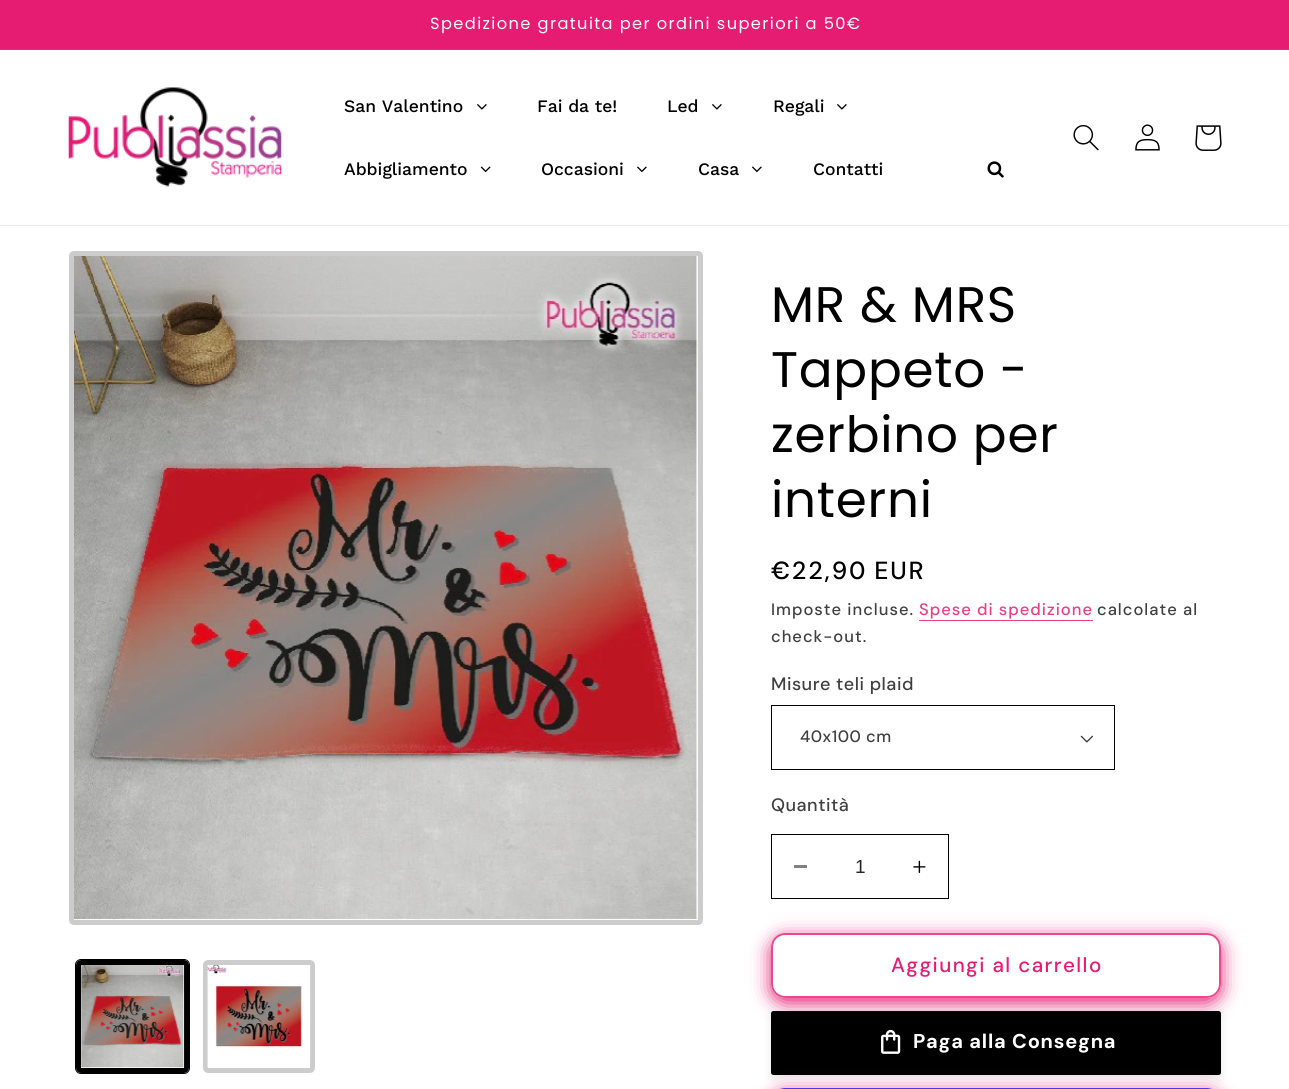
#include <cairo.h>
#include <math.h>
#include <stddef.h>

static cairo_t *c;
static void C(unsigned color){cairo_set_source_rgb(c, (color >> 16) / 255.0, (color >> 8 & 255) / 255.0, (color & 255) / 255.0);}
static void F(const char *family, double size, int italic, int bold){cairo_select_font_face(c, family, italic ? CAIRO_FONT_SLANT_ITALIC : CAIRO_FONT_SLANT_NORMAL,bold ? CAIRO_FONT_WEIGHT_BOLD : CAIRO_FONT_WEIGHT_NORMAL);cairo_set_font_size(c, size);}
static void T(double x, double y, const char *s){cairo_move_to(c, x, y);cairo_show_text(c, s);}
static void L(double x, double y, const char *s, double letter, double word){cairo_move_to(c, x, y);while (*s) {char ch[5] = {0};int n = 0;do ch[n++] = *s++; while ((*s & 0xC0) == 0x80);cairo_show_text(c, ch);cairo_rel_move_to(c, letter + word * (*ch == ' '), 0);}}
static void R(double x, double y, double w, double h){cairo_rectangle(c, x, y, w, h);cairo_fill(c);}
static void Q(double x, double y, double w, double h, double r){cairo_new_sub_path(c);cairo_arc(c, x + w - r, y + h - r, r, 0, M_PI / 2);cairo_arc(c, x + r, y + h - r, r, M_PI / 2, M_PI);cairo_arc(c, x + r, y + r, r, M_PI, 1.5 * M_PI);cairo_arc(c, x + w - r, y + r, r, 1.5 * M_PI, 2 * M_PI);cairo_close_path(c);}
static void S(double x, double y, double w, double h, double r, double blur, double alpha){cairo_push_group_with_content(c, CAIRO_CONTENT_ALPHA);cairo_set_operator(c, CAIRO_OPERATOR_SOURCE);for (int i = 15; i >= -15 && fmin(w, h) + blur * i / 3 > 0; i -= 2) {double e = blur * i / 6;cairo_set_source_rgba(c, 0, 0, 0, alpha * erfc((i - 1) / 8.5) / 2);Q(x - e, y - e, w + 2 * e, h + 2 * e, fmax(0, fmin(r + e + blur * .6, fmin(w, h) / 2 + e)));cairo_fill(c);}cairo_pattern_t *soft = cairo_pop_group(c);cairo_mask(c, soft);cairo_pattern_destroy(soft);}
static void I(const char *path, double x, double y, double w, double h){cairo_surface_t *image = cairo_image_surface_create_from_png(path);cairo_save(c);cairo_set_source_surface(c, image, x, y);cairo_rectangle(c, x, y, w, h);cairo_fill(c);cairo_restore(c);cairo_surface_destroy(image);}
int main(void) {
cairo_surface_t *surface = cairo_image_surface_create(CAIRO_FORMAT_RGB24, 1289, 1089);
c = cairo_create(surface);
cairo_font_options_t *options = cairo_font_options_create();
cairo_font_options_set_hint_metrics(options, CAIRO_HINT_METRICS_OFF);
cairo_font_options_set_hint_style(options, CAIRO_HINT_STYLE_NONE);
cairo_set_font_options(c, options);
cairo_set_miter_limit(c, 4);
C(0xffffff);
cairo_paint(c);
C(0xe61b72);
R(0,0,1289,49);
C(0xe82d7d);
R(0,49,1289,1);
F("Poppins",16.25,0,0);
C(0xffffff);
L(430,29,"Spedizione gratuita per ordini superiori a 50€",1.4,0);
C(0xebebeb);
R(0,225,1289,1);
I("1.png",68,87,214,100);
F("Work Sans Medium",17.5,0,0);
C(0x000000);
T(344,112,"San Valentino");
I("2.png",477,104,10,6);
T(537,112,"Fai da te!");
T(667,112,"Led");
I("2.png",712,104,10,6);
T(773,112,"Regali");
I("2.png",837,104,10,6);
T(344,175,"Abbigliamento");
I("3.png",480,166,11,7);
T(541,175,"Occasioni");
I("4.png",637,166,10,7);
T(698,175,"Casa");
I("4.png",752,166,10,7);
T(813,175,"Contatti");
I("5.png",987,161,17,17);
I("6.png",1073,124,26,27);
I("7.png",1135,124,25,27);
I("8.png",1195,125,27,26);
Q(71.5,253.5,629,669,2.5);
C(0xcccccc);
cairo_set_line_width(c,5);
cairo_stroke(c);
I("9.png",74,256,624,664);
Q(75.5,959.5,114,114,5.5);
C(0x000000);
cairo_set_line_width(c,1);
cairo_stroke(c);
Q(78.5,962.5,108,108,2.5);
cairo_set_line_width(c,5);
cairo_stroke(c);
I("10.png",81,965,104,103);
Q(205.5,962.5,107,108,2.5);
C(0xcccccc);
cairo_stroke(c);
I("11.png",207,965,104,103);
F("Poppins",50,0,0);
C(0x000000);
L(771,322,"MR & MRS",.75,0);
L(771,387,"Tappeto -",.75,0);
L(771,452,"zerbino per",.75,0);
L(771,517,"interni",.75,0);
F("DM Sans Medium",24.75,0,0);
L(771,579,"€22,90 EUR",1.75,-1);
F("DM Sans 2 Medium",16.5,0,0);
C(0x404040);
L(771,615,"Imposte incluse.",1,0);
C(0xea3d87);
L(919,615,"Spese di spedizione",1,0);
R(919,620,174,1);
C(0x404040);
L(1097,615,"calcolate al",1,0);
L(771,642,"check-out.",1,0);
F("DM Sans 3 Medium",18,0,0);
L(771,690,"Misure teli plaid",.5,0);
I("12.png",1080,735,13,8);
cairo_rectangle(c,771.5,705.5,343,64);
C(0x000000);
cairo_set_line_width(c,1);
cairo_stroke(c);
F("DM Sans 2 Medium",16.5,0,0);
C(0x404040);
L(800,742,"40x100 cm",.5,0);
F("DM Sans 3 Medium",18,0,0);
L(771,811,"Quantità",.5,0);
C(0x808080);
R(794,865,13,3);
I("13.png",913,860,13,13);
cairo_rectangle(c,771.5,834.5,177,64);
C(0x000000);
cairo_stroke(c);
F("Liberation Sans",19,0,0);
C(0x262626);
T(855,873,"1");
C(0xe61b72);
S(771,938,450,65,14,9.5,1);
C(0xffffff);
Q(771,933,450,65,14);
cairo_fill(c);
Q(771.5,933.5,449,64,13.5);
cairo_stroke(c);
Q(772,934,448,63,13);
cairo_set_source_rgba(c,0.902,0.106,0.447,0.8);
cairo_set_line_width(c,2);
cairo_stroke(c);
F("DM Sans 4 Medium",20.6,0,0);
C(0xe61b72);
L(891,972,"Aggiungi al carrello",1.4,0);
C(0x000000);
S(771,1014,450,64,2.5,4.5,.1);
C(0x000000);
Q(771,1011,450,64,2.5);
cairo_fill(c);
I("14.png",881,1029,20,25);
F("DM Sans",20,0,1);
C(0xffffff);
L(913,1048,"Paga alla Consegna",.8,0);
cairo_save(c);
cairo_set_fill_rule(c,CAIRO_FILL_RULE_EVEN_ODD);
cairo_new_path(c);
cairo_move_to(c,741,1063);
cairo_line_to(c,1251,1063);
cairo_line_to(c,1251,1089);
cairo_line_to(c,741,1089);
cairo_close_path(c);
cairo_move_to(c,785,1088);
cairo_line_to(c,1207,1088);
cairo_curve_to(c,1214.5,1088,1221,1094.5,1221,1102);
cairo_line_to(c,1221,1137);
cairo_curve_to(c,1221,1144.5,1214.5,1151,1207,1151);
cairo_line_to(c,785,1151);
cairo_curve_to(c,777.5,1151,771,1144.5,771,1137);
cairo_line_to(c,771,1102);
cairo_curve_to(c,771,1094.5,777.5,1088,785,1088);
cairo_close_path(c);
cairo_clip(c);
C(0xe61b72);
S(771,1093,450,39,14,9.5,1);
cairo_restore(c);
C(0x5433eb);
Q(771,1088,450,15,14);
cairo_fill(c);
cairo_surface_write_to_png(surface, "o.png");
cairo_font_options_destroy(options);
cairo_destroy(c);
cairo_surface_destroy(surface);
return 0;
}
